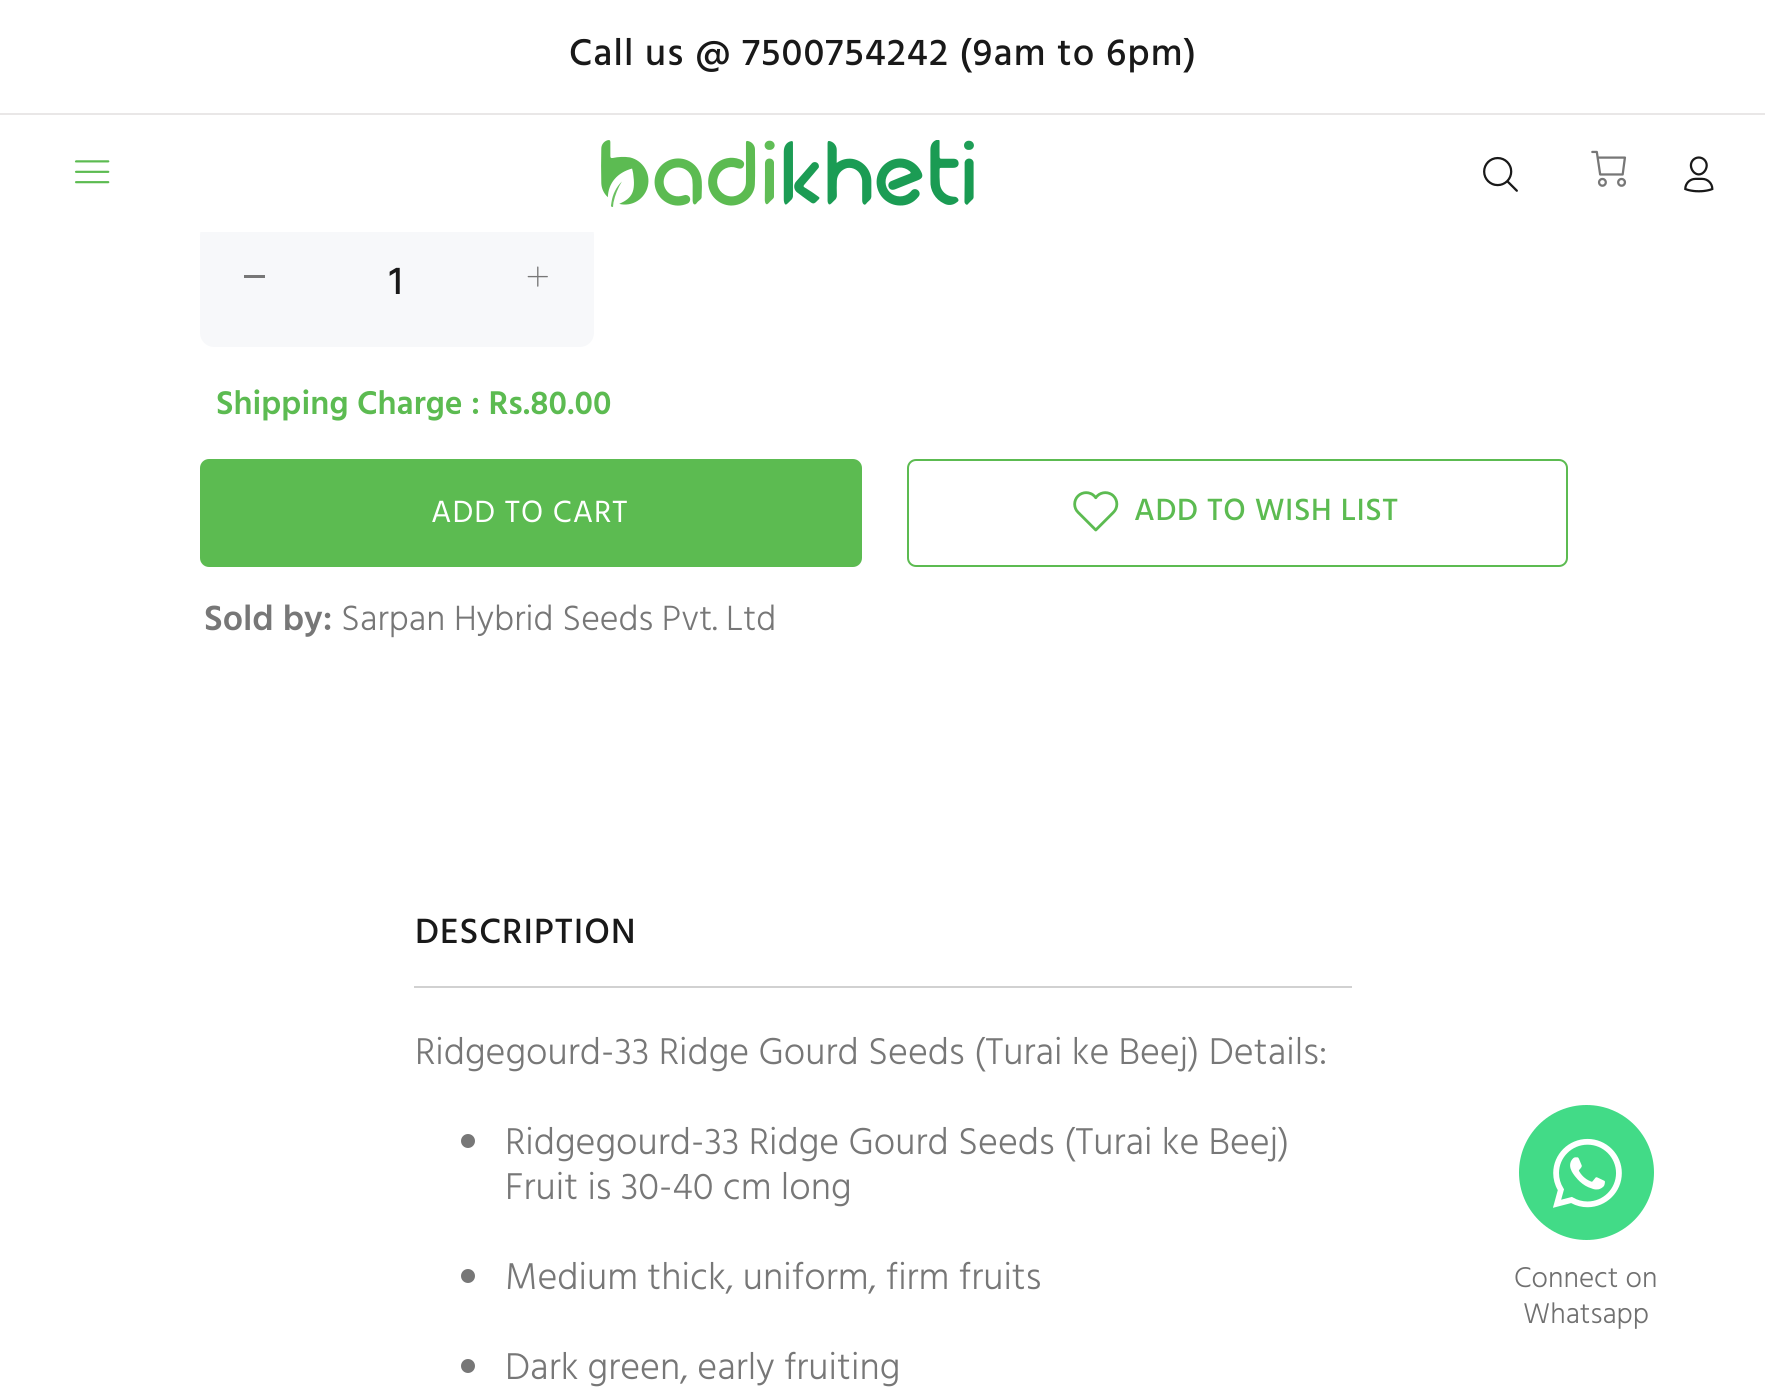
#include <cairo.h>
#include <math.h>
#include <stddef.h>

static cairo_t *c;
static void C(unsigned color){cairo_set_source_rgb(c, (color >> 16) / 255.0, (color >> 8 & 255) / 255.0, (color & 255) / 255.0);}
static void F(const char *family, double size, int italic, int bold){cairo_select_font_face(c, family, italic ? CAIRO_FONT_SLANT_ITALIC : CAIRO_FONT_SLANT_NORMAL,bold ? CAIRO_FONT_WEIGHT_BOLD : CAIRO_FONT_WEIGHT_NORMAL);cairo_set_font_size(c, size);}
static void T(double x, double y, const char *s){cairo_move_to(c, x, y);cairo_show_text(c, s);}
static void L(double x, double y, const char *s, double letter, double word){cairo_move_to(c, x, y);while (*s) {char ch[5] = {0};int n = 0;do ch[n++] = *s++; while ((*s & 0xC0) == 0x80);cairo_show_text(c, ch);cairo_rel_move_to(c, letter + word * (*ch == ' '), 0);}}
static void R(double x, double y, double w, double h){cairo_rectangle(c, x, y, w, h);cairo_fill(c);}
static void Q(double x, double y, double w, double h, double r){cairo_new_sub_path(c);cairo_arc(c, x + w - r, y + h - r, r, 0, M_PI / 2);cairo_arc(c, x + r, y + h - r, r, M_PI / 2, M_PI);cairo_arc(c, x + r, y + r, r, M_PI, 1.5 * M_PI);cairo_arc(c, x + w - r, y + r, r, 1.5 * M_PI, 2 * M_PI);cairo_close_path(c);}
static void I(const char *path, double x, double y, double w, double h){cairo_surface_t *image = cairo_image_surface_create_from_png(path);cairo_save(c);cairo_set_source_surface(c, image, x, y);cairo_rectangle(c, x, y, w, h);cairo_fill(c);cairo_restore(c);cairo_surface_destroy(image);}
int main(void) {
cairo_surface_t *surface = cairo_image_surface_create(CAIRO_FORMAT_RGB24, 1765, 1399);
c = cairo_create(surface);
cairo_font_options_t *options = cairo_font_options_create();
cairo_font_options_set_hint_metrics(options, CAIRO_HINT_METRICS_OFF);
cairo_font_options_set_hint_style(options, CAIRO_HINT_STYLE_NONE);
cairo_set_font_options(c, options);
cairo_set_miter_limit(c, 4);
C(0xffffff);
cairo_paint(c);
C(0xf7f8fa);
Q(200,221,394,126,14);
cairo_fill(c);
C(0xffffff);
R(200,221,394,11);
F("Hind Medium",38.25,0,0);
C(0x191919);
L(569,65,"Call us @ 7500754242 (9am to 6pm)",1.15,0);
C(0xe9e7e7);
R(0,113,1765,2);
I("1.png",74,160,36,24);
I("2.png",601,140,373,67);
I("3.png",1483,156,35,36);
I("4.png",1591,150,36,37);
I("5.png",1684,156,30,37);
C(0x777777);
R(244,275,21,3);
F("Hind Medium",40,0,0);
C(0x191919);
T(389,294,"1");
I("6.png",527,266,21,21);
F("Hind SemiBold",33.75,0,0);
C(0x5cbb51);
T(216,414,"Shipping Charge : Rs.80.00");
Q(200,459,662,108,9);
cairo_fill(c);
F("Hind",31.5,0,0);
C(0xffffff);
L(431,522,"ADD TO CART",1,0);
Q(908,460,659,106,8);
C(0x5cbb51);
cairo_stroke(c);
I("7.png",1073,491,46,41);
F("Hind Medium",31.5,0,0);
L(1134,520,"ADD TO WISH LIST",.6,0);
F("Hind SemiBold",36,0,0);
C(0x777777);
T(204,630,"Sold by:");
F("Hind Light",36,0,0);
T(341,630,"Sarpan Hybrid Seeds Pvt. Ltd");
C(0xd1d1d1);
R(414,986,938,2);
F("Hind Medium",36,0,0);
C(0x191919);
L(415,943,"DESCRIPTION",1,0);
F("Hind Light",38.25,0,0);
C(0x777777);
T(415,1064,"Ridgegourd-33 Ridge Gourd Seeds (Turai ke Beej) Details:");
cairo_new_path(c);
cairo_arc(c,468,1141,7,0,2 * M_PI);
cairo_fill(c);
T(505,1154,"Ridgegourd-33 Ridge Gourd Seeds (Turai ke Beej)");
T(505,1199,"Fruit is 30-40 cm long");
cairo_new_path(c);
cairo_arc(c,468,1276,7,0,2 * M_PI);
cairo_fill(c);
T(505,1289,"Medium thick, uniform, firm fruits");
cairo_new_path(c);
cairo_arc(c,468,1366,7,0,2 * M_PI);
cairo_fill(c);
T(505,1379,"Dark green, early fruiting");
C(0x42db87);
cairo_new_path(c);
cairo_arc(c,1586.5,1172.5,67.5,0,2 * M_PI);
cairo_fill(c);
I("8.png",1553,1138,69,70);
F("Hind Light",29.25,0,0);
C(0x707070);
T(1514,1287,"Connect on");
T(1523,1323,"Whatsapp");
cairo_surface_write_to_png(surface, "o.png");
cairo_font_options_destroy(options);
cairo_destroy(c);
cairo_surface_destroy(surface);
return 0;
}
